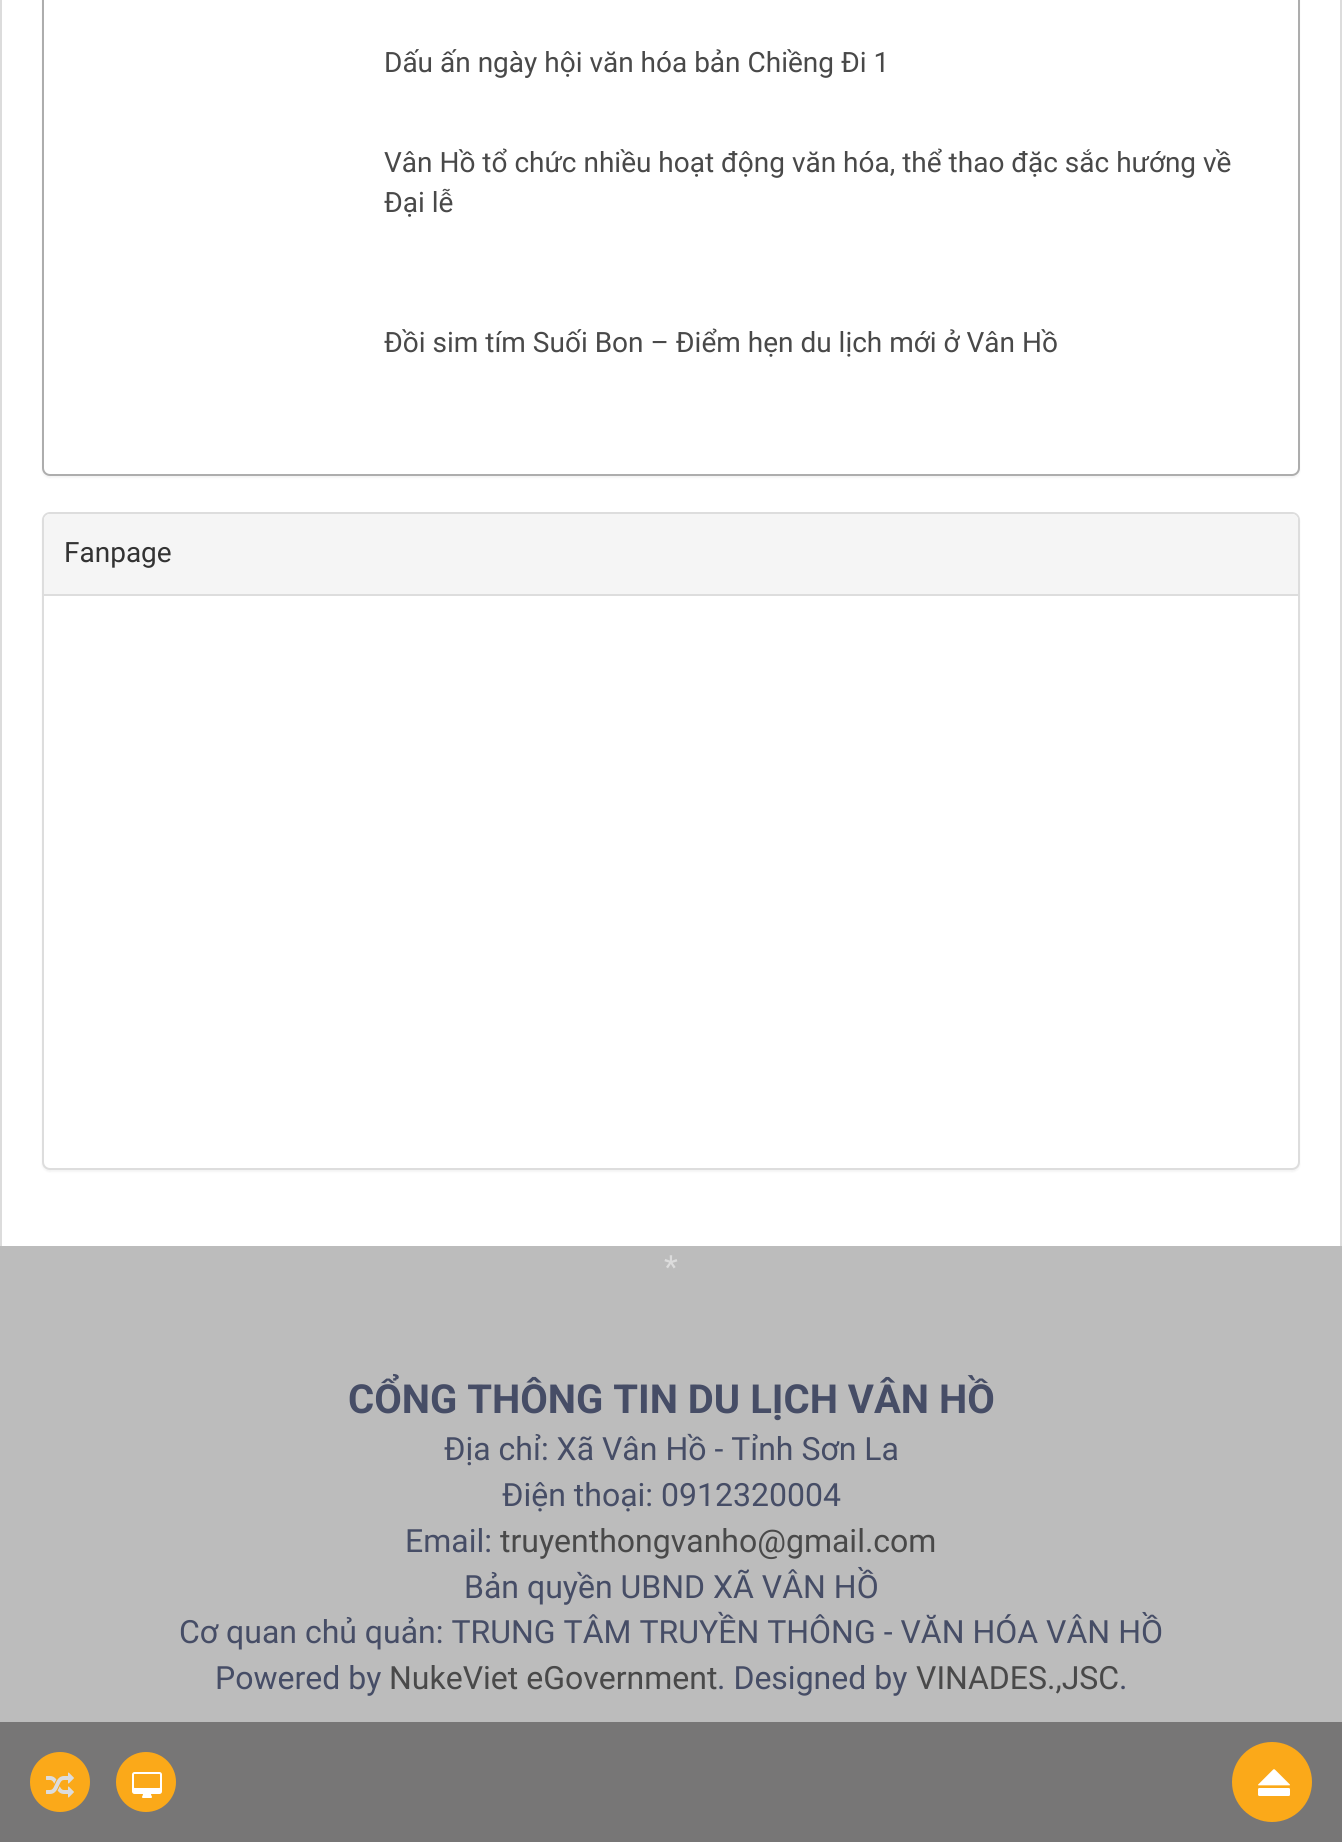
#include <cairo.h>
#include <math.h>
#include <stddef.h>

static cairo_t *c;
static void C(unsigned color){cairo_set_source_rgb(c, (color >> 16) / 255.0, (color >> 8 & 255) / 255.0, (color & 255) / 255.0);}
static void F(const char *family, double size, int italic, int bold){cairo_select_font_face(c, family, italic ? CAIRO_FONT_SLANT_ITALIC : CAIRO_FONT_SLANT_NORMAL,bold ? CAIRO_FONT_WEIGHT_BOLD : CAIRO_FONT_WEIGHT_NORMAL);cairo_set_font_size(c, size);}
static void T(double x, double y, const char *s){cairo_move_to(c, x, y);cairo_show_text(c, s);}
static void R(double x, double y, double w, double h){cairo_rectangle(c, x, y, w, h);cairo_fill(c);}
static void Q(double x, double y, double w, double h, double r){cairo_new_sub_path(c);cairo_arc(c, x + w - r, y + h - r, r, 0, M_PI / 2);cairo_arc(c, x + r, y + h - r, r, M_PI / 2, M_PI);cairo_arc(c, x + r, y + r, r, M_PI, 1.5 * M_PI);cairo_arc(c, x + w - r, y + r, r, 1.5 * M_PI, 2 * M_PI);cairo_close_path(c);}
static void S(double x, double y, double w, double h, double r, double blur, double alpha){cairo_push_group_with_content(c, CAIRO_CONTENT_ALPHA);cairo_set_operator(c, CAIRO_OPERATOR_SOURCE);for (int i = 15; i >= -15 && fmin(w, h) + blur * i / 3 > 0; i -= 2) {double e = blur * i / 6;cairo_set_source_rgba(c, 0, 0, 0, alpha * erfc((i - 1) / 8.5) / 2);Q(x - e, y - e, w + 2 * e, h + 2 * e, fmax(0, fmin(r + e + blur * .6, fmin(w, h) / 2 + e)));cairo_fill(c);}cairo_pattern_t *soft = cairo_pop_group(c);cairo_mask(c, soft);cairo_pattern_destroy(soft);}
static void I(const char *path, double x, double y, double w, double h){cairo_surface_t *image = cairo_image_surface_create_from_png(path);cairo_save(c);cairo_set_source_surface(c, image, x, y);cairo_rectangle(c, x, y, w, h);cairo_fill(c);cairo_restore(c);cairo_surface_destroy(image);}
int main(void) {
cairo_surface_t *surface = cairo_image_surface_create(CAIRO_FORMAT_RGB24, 1342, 1842);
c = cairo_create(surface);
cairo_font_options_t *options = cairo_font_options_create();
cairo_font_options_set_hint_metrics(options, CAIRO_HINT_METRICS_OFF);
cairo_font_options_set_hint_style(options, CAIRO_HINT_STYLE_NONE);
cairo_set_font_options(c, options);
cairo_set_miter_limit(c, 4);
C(0xffffff);
cairo_paint(c);
C(0xdcdcdc);
R(1340,0,2,1246);
R(0,0,2,1246);
C(0x000000);
S(42,-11,1258,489,8,1,.05);
C(0xffffff);
Q(43,-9,1256,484,7);
cairo_fill_preserve(c);
C(0xadadad);
cairo_stroke(c);
F("Roboto",28,0,0);
C(0x494949);
T(384,72,"Dấu ấn ngày hội văn hóa bản Chiềng Đi 1");
T(384,172,"Vân Hồ tổ chức nhiều hoạt động văn hóa, thể thao đặc sắc hướng về");
T(384,212,"Đại lễ");
T(384,352,"Đồi sim tím Suối Bon – Điểm hẹn du lịch mới ở Vân Hồ");
C(0x000000);
S(42,514,1258,658,8,1,.05);
C(0xffffff);
Q(43,513,1256,656,7);
cairo_fill_preserve(c);
C(0xdddddd);
cairo_stroke(c);
C(0xf5f5f5);
cairo_new_path(c);
cairo_move_to(c,50,514);
cairo_line_to(c,1292,514);
cairo_curve_to(c,1295.5,514,1298,516.5,1298,520);
cairo_line_to(c,1298,596);
cairo_line_to(c,44,596);
cairo_line_to(c,44,520);
cairo_curve_to(c,44,516.5,46.5,514,50,514);
cairo_close_path(c);
cairo_fill(c);
C(0xdddddd);
R(44,594,1254,2);
C(0x333333);
T(64,562,"Fanpage");
C(0xbcbcbc);
R(0,1246,1342,476);
F("Roboto",32,0,0);
C(0xdcdcdc);
T(664,1278,"*");
F("Roboto",40,0,1);
C(0x464d66);
T(348,1413,"CỔNG THÔNG TIN DU LỊCH VÂN HỒ");
F("Roboto",32,0,0);
T(444,1460,"Địa chỉ: Xã Vân Hồ - Tỉnh Sơn La");
T(502,1506,"Điện thoại: 0912320004");
T(405,1552,"Email:");
C(0x494949);
T(500,1552,"truyenthongvanho@gmail.com");
C(0x464d66);
T(464,1598,"Bản quyền UBND XÃ VÂN HỒ");
T(179,1643,"Cơ quan chủ quản: TRUNG TÂM TRUYỀN THÔNG - VĂN HÓA VÂN HỒ");
T(215,1689,"Powered by");
C(0x494949);
T(389,1689,"NukeViet eGovernment");
C(0x464d66);
T(717,1689,". Designed by");
C(0x494949);
T(916,1689,"VINADES.,JSC");
C(0x464d66);
T(1119,1689,".");
C(0x777676);
R(0,1722,1342,120);
C(0xfba919);
cairo_new_path(c);
cairo_arc(c,60,1782,30,0,2 * M_PI);
cairo_fill(c);
I("1.png",46,1772,28,26);
cairo_arc(c,146,1782,30,0,2 * M_PI);
cairo_fill(c);
I("2.png",132,1772,30,26);
cairo_arc(c,1272,1782,40,0,2 * M_PI);
cairo_fill(c);
I("3.png",1258,1769,32,27);
cairo_surface_write_to_png(surface, "o.png");
cairo_font_options_destroy(options);
cairo_destroy(c);
cairo_surface_destroy(surface);
return 0;
}
